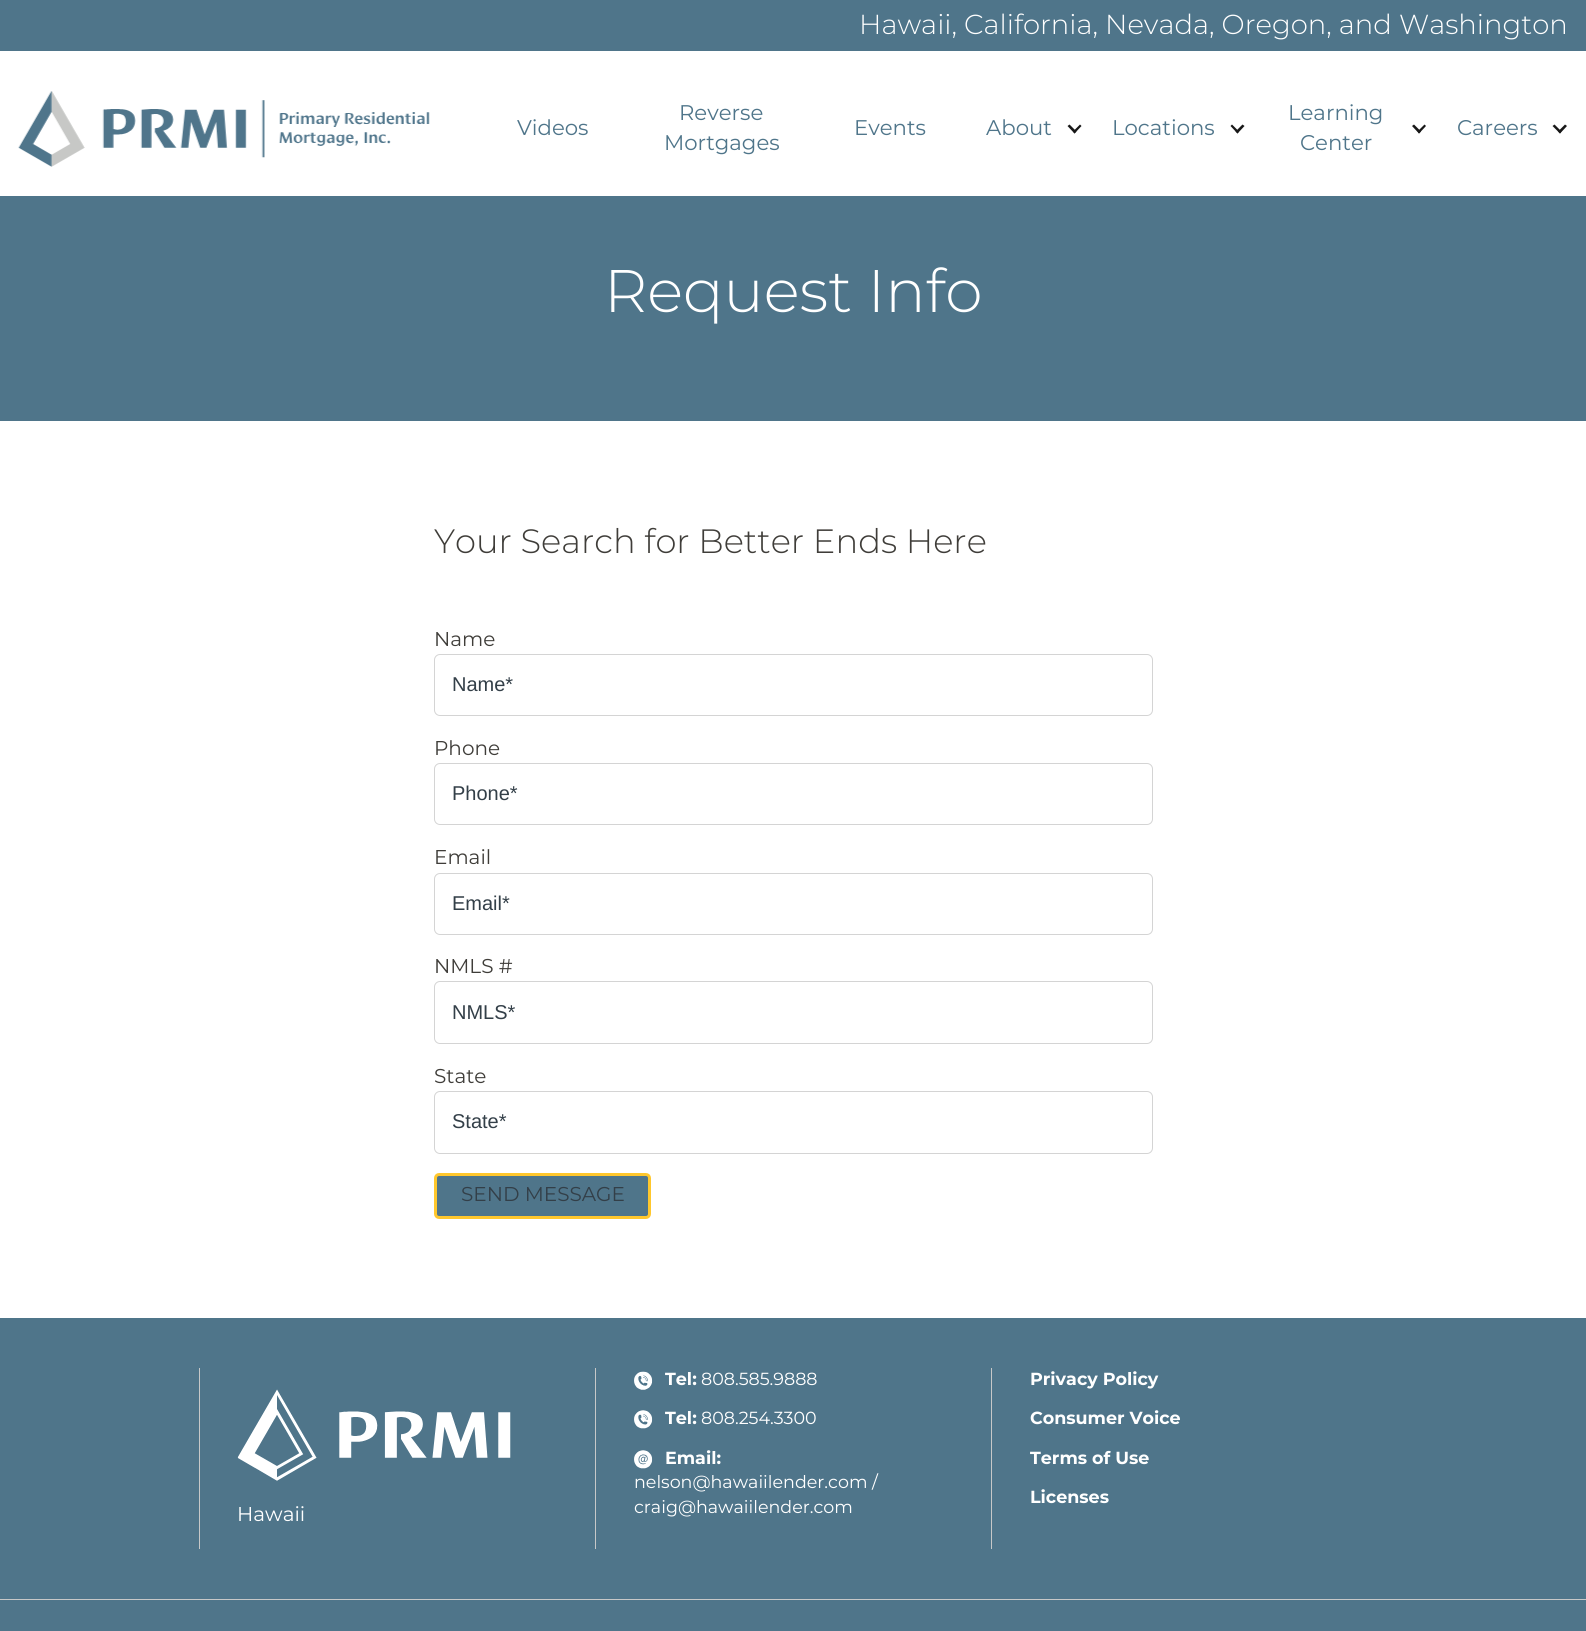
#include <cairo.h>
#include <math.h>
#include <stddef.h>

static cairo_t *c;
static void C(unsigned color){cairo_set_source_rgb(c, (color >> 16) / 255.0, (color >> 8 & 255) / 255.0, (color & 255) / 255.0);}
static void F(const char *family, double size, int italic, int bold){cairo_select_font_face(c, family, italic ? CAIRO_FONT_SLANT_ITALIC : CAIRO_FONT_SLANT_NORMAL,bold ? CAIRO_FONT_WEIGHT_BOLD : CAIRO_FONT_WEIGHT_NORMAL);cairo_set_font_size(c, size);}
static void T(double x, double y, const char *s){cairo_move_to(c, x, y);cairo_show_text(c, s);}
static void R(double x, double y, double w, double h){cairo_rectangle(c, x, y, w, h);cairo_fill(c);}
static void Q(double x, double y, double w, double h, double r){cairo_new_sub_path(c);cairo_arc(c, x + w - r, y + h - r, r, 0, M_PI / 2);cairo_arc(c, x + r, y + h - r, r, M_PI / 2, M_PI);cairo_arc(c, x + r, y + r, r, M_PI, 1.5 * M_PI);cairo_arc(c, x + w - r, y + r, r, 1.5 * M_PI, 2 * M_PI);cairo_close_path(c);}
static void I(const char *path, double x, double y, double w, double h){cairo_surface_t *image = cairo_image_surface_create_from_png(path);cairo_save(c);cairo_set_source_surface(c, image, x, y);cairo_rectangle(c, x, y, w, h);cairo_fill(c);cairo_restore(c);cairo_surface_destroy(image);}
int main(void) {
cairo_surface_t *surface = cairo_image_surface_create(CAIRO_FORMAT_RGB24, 1586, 1631);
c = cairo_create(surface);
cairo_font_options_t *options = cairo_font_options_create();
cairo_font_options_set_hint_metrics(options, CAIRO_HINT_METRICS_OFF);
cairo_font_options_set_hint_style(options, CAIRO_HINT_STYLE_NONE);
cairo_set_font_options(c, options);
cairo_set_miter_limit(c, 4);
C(0xffffff);
cairo_paint(c);
C(0x4f758a);
R(0,0,1586,51);
F("Montserrat Light",27.5,0,0);
C(0xffffff);
T(859,34,"Hawaii, California, Nevada, Oregon, and Washington");
I("1.png",18,91,412,76);
F("Montserrat",21.25,0,0);
C(0x4f758a);
T(517,135,"Videos");
T(679,120,"Reverse");
T(664,150,"Mortgages");
T(854,135,"Events");
T(986,135,"About");
C(0x181818);
cairo_new_path(c);
cairo_move_to(c,1080,124.5);
cairo_line_to(c,1081.5,126);
cairo_line_to(c,1074.5,133.5);
cairo_line_to(c,1073,131.5);
cairo_close_path(c);
cairo_fill(c);
cairo_new_path(c);
cairo_move_to(c,1069.5,124.5);
cairo_line_to(c,1076.5,131.5);
cairo_line_to(c,1074.5,133.5);
cairo_line_to(c,1067.5,126);
cairo_close_path(c);
cairo_fill(c);
C(0x4f758a);
T(1112,135,"Locations");
C(0x181818);
cairo_new_path(c);
cairo_move_to(c,1242.5,124.5);
cairo_line_to(c,1244.5,126);
cairo_line_to(c,1237.5,133.5);
cairo_line_to(c,1235.5,131.5);
cairo_close_path(c);
cairo_fill(c);
cairo_new_path(c);
cairo_move_to(c,1232,124.5);
cairo_line_to(c,1239,131.5);
cairo_line_to(c,1237.5,133.5);
cairo_line_to(c,1230.5,126);
cairo_close_path(c);
cairo_fill(c);
C(0x4f758a);
T(1288,120,"Learning");
T(1300,150,"Center");
C(0x181818);
cairo_new_path(c);
cairo_move_to(c,1424.5,124.5);
cairo_line_to(c,1426,126);
cairo_line_to(c,1419,133.5);
cairo_line_to(c,1417.5,131.5);
cairo_close_path(c);
cairo_fill(c);
cairo_new_path(c);
cairo_move_to(c,1414,124.5);
cairo_line_to(c,1421,131.5);
cairo_line_to(c,1419,133.5);
cairo_line_to(c,1412,126);
cairo_close_path(c);
cairo_fill(c);
C(0x4f758a);
T(1457,135,"Careers");
C(0x181818);
cairo_new_path(c);
cairo_move_to(c,1565,124.5);
cairo_line_to(c,1567,126);
cairo_line_to(c,1560,133.5);
cairo_line_to(c,1558,131.5);
cairo_close_path(c);
cairo_fill(c);
cairo_new_path(c);
cairo_move_to(c,1554.5,124.5);
cairo_line_to(c,1561.5,131.5);
cairo_line_to(c,1560,133.5);
cairo_line_to(c,1552.5,126);
cairo_close_path(c);
cairo_fill(c);
C(0x4f758a);
R(0,196,1586,225);
F("Montserrat Light",60,0,0);
C(0xffffff);
T(604,312,"Request Info");
F("Montserrat Light",33.75,0,0);
C(0x3f3d39);
T(434,553,"Your Search for Better Ends Here");
F("Montserrat",20,0,0);
T(434,646,"Name");
Q(434.5,654.5,718,61,5.5);
C(0xd4d4d4);
cairo_set_line_width(c,1);
cairo_stroke(c);
F("Liberation Sans",20,0,0);
C(0x333f48);
T(452,691,"Name*");
F("Montserrat",20,0,0);
C(0x3f3d39);
T(434,755,"Phone");
Q(434.5,763.5,718,61,5.5);
C(0xd4d4d4);
cairo_stroke(c);
F("Liberation Sans",20,0,0);
C(0x333f48);
T(452,800,"Phone*");
F("Montserrat",20,0,0);
C(0x3f3d39);
T(434,864,"Email");
Q(434.5,873.5,718,61,5.5);
C(0xd4d4d4);
cairo_stroke(c);
F("Liberation Sans",20,0,0);
C(0x333f48);
T(452,910,"Email*");
F("Montserrat",20,0,0);
C(0x3f3d39);
T(434,973,"NMLS #");
Q(434.5,981.5,718,62,5.5);
C(0xd4d4d4);
cairo_stroke(c);
F("Liberation Sans",20,0,0);
C(0x333f48);
T(452,1019,"NMLS*");
F("Montserrat",20,0,0);
C(0x3f3d39);
T(434,1083,"State");
Q(434.5,1091.5,718,62,5.5);
C(0xd4d4d4);
cairo_stroke(c);
F("Liberation Sans",20,0,0);
C(0x333f48);
T(452,1128,"State*");
C(0x4f758a);
Q(435.5,1174.5,214,43,3.5);
cairo_fill_preserve(c);
C(0xffc72c);
cairo_set_line_width(c,3);
cairo_stroke(c);
F("Montserrat",20,0,0);
C(0x333f48);
T(461,1201,"SEND MESSAGE");
C(0x4f758a);
R(0,1318,1586,313);
C(0xc7c8c8);
R(199,1368,1,181);
I("2.png",237,1389,274,92);
C(0xffffff);
T(237,1521,"Hawaii");
C(0xc7c8c8);
R(595,1368,1,181);
I("3.png",634,1371,19,19);
F("Montserrat",17.5,0,1);
C(0xffffff);
T(665,1385,"Tel:");
F("Montserrat",17.5,0,0);
T(701,1385,"808.585.9888");
I("4.png",634,1410,19,19);
F("Montserrat",17.5,0,1);
T(665,1424,"Tel:");
F("Montserrat",17.5,0,0);
T(701,1424,"808.254.3300");
I("5.png",634,1450,19,19);
F("Montserrat",17.5,0,1);
T(665,1464,"Email:");
F("Montserrat",17.5,0,0);
T(634,1488,"nelson@hawaiilender.com /");
T(634,1513,"craig@hawaiilender.com");
C(0xc7c8c8);
R(991,1368,1,181);
F("Montserrat",17.5,0,1);
C(0xffffff);
T(1030,1385,"Privacy Policy");
T(1030,1424,"Consumer Voice");
T(1030,1464,"Terms of Use");
T(1030,1503,"Licenses");
C(0xc7c8c8);
R(0,1599,1586,1);
cairo_surface_write_to_png(surface, "o.png");
cairo_font_options_destroy(options);
cairo_destroy(c);
cairo_surface_destroy(surface);
return 0;
}
